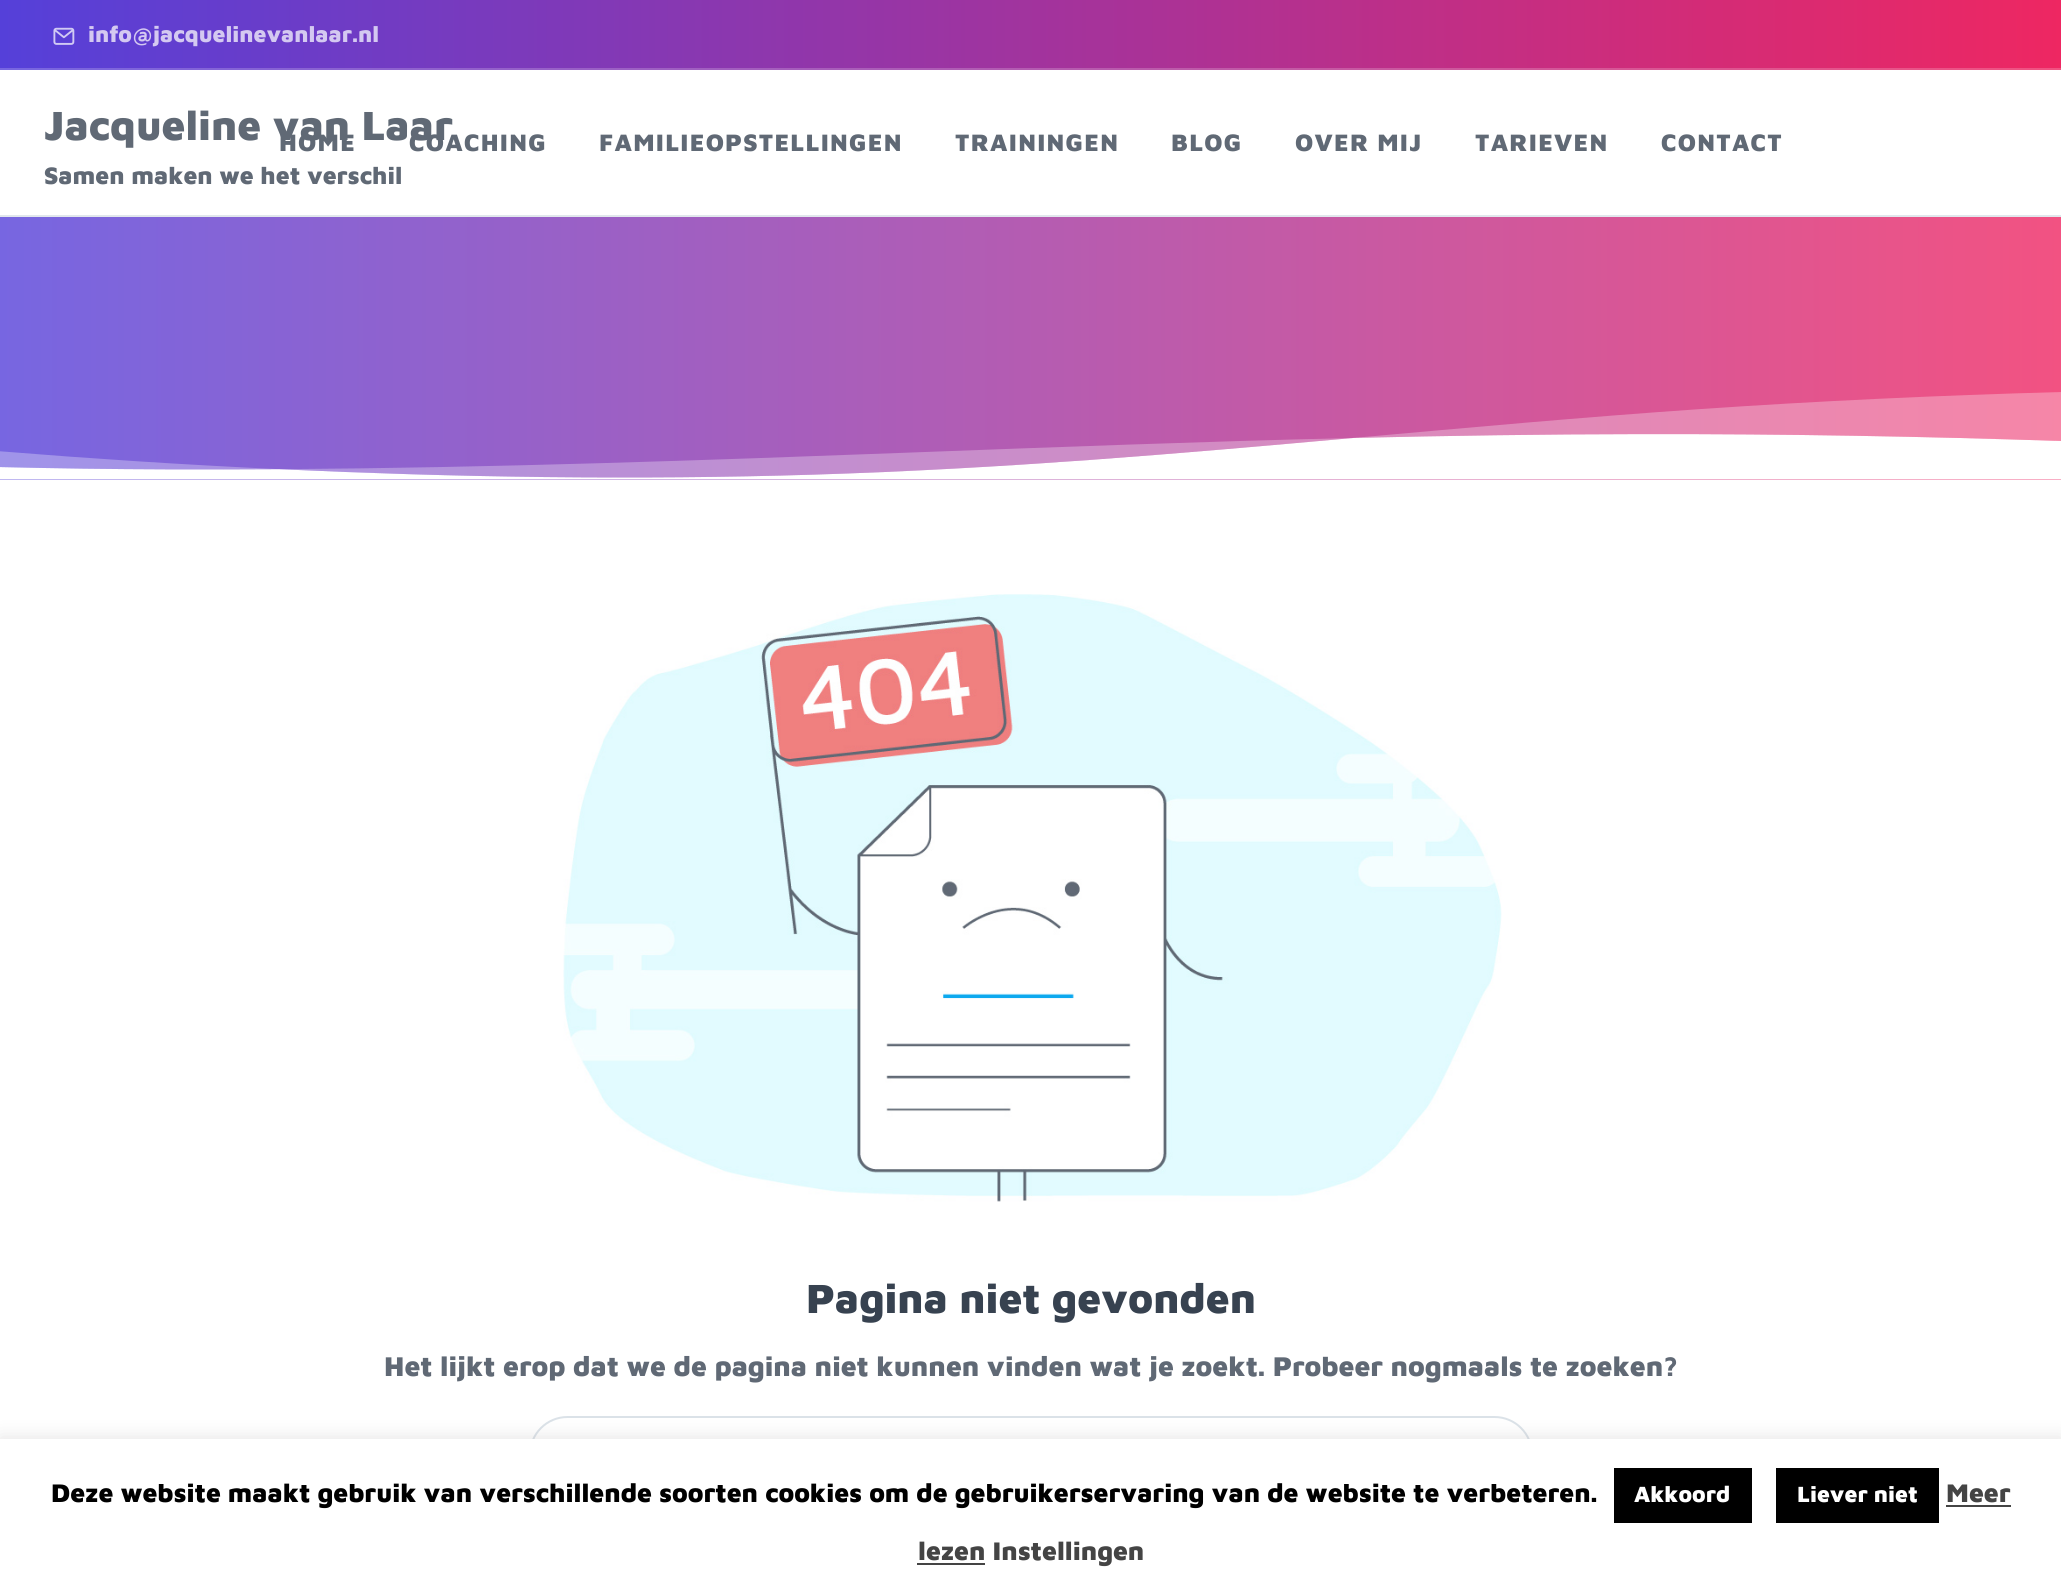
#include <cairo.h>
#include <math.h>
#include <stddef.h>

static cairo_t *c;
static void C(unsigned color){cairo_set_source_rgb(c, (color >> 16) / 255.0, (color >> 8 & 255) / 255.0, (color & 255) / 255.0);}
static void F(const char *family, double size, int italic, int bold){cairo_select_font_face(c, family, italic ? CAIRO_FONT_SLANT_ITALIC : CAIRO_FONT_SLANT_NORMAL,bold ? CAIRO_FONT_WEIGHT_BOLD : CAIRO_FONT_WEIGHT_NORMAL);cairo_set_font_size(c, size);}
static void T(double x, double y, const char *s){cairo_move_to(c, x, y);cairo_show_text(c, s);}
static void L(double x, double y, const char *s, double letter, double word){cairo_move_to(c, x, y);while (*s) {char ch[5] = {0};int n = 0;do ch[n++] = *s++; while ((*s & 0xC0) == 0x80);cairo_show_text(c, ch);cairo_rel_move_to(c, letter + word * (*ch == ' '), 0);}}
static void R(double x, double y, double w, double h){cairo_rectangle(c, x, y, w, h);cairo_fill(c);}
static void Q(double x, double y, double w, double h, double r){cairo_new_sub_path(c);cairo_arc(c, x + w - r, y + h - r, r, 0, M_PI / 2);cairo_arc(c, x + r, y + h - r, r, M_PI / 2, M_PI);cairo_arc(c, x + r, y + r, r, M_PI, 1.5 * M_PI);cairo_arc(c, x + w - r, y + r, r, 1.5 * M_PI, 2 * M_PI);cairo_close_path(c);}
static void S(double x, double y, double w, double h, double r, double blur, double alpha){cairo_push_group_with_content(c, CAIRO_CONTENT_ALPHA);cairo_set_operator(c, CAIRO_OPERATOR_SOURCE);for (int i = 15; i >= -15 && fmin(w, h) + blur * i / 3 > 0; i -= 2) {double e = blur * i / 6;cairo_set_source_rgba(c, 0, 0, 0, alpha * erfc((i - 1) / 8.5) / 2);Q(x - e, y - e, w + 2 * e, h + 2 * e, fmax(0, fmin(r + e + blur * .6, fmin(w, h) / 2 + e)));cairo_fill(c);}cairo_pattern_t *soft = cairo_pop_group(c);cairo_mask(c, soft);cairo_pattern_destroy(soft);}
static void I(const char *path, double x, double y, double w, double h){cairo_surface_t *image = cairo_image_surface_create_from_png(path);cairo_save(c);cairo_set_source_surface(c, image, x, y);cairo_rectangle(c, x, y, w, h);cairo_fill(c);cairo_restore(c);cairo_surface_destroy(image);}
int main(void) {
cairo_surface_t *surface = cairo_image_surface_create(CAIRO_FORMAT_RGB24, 2061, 1591);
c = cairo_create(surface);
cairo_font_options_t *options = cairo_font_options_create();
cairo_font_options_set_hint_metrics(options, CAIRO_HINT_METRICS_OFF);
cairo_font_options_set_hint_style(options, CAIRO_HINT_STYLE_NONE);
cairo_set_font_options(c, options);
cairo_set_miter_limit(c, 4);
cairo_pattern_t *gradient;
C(0xffffff);
cairo_paint(c);
gradient = cairo_pattern_create_linear(0,34,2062,34);
cairo_pattern_add_color_stop_rgba(gradient,0,0.333,0.251,0.851,1);
cairo_pattern_add_color_stop_rgba(gradient,1,0.933,0.153,0.384,1);
cairo_set_source(c,gradient);
cairo_pattern_destroy(gradient);
R(0,0,2061,68);
gradient = cairo_pattern_create_linear(0,34,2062,34);
cairo_pattern_add_color_stop_rgba(gradient,0,0.467,0.4,0.882,1);
cairo_pattern_add_color_stop_rgba(gradient,1,0.945,0.322,0.506,1);
cairo_set_source(c,gradient);
cairo_pattern_destroy(gradient);
R(0,68,2061,2);
I("1.png",53,27,22,18);
F("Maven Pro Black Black",22.75,0,0);
C(0xd4c9f1);
T(88,42,"info@jacquelinevanlaar.nl");
C(0xe1e7ec);
R(0,215,2061,2);
F("Maven Pro Black Black",24.5,0,0);
C(0x606975);
L(279,151,"HOME",1.25,0);
L(409,151,"COACHING",1.25,0);
F("Maven Pro Black Black",42,0,0);
T(44,140,"Jacqueline van Laar");
F("Maven Pro Black Black",24.5,0,0);
T(44,184,"Samen maken we het verschil");
L(599,151,"FAMILIEOPSTELLINGEN",1.25,0);
L(955,151,"TRAININGEN",1.25,0);
L(1171,151,"BLOG",1.25,0);
L(1295,151,"OVER MIJ",1.25,0);
L(1475,151,"TARIEVEN",1.25,0);
L(1661,151,"CONTACT",1.25,0);
gradient = cairo_pattern_create_linear(0,348,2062,348);
cairo_pattern_add_color_stop_rgba(gradient,0,0.467,0.4,0.882,1);
cairo_pattern_add_color_stop_rgba(gradient,1,0.949,0.322,0.51,1);
cairo_set_source(c,gradient);
cairo_pattern_destroy(gradient);
R(0,217,2061,263);
I("2.png",0,392,2061,88);
I("3.png",563,594,939,608);
F("Maven Pro Black Black",42,0,0);
C(0x374250);
T(806,1313,"Pagina niet gevonden");
F("Maven Pro Black Black",28,0,0);
C(0x606975);
T(384,1376,"Het lijkt erop dat we de pagina niet kunnen vinden wat je zoekt. Probeer nogmaals te zoeken?");
Q(530,1417,1002,75,37.5);
C(0xdbe2e8);
cairo_stroke(c);
C(0xacabab);
S(0,1437,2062,154,0,9,.3);
C(0xffffff);
R(0,1439,2061,152);
F("Maven Pro Black Black",26.25,0,0);
C(0x000000);
T(51,1502,"Deze website maakt gebruik van verschillende soorten cookies om de gebruikerservaring van de website te verbeteren.");
R(1614,1468,138,55);
F("Maven Pro Black Black",22.75,0,0);
C(0xffffff);
T(1634,1502,"Akkoord");
C(0x000000);
R(1776,1468,163,55);
C(0xffffff);
T(1797,1502,"Liever niet");
F("Maven Pro Black Black",26.25,0,0);
C(0x444444);
T(1946,1502,"Meer");
R(1946,1505,65,2);
R(917,1563,68,2);
T(918,1560,"lezen Instellingen");
cairo_surface_write_to_png(surface, "o.png");
cairo_font_options_destroy(options);
cairo_destroy(c);
cairo_surface_destroy(surface);
return 0;
}
